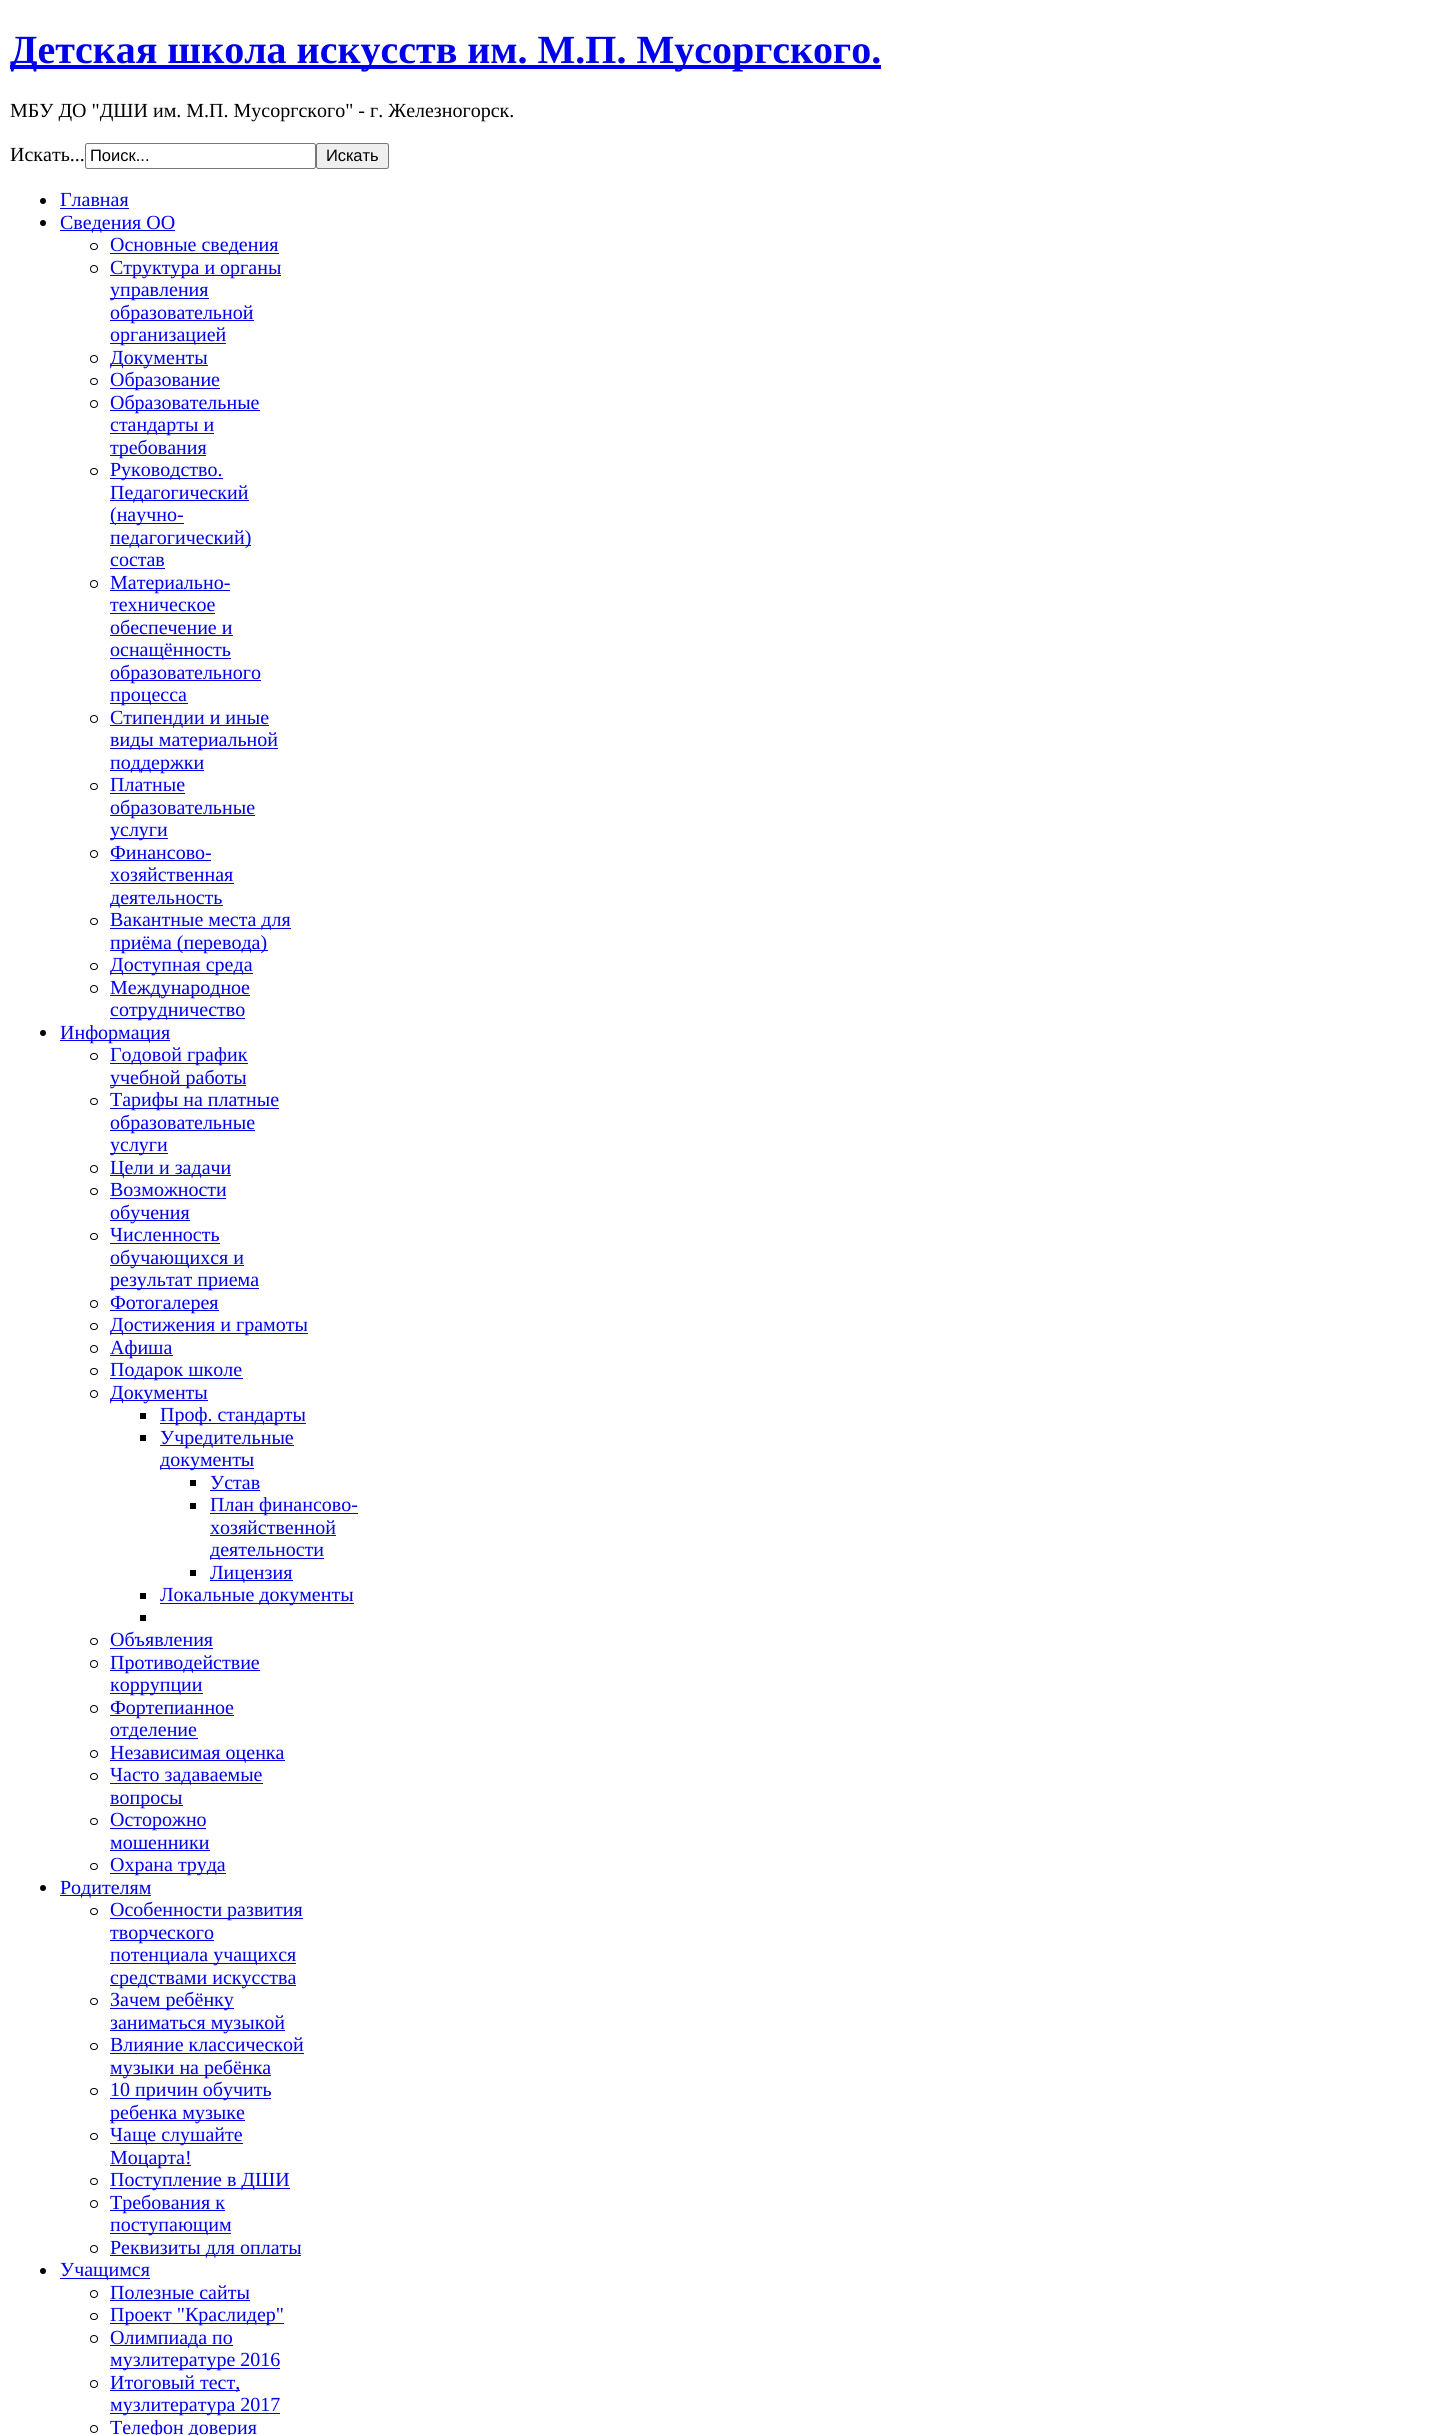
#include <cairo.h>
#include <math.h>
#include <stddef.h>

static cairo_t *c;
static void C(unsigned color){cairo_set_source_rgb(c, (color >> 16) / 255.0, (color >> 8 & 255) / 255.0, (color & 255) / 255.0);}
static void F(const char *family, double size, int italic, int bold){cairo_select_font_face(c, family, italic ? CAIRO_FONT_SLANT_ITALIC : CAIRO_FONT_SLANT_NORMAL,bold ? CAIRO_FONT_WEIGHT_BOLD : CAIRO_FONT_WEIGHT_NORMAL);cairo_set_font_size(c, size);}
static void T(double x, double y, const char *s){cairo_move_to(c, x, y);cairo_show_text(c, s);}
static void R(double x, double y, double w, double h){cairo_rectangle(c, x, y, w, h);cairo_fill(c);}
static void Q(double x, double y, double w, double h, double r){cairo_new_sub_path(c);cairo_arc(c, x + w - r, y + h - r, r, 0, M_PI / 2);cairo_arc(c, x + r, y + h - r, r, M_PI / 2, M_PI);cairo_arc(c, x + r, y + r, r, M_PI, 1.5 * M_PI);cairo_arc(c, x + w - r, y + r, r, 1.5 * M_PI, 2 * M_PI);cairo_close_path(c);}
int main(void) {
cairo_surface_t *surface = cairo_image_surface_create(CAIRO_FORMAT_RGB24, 1431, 2435);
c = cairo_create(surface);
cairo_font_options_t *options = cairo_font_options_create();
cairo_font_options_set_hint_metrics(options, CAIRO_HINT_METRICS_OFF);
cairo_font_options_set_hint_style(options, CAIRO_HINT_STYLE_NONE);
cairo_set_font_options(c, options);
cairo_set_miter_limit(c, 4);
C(0xffffff);
cairo_paint(c);
C(0x0000ee);
R(10,65,871,4);
F("Liberation Serif",40,0,1);
T(10,63,"Детская школа искусств им. М.П. Мусоргского.");
F("Liberation Serif",20,0,0);
C(0x000000);
T(10,117,"МБУ ДО \"ДШИ им. М.П. Мусоргского\" - г. Железногорск.");
T(10,161,"Искать...");
Q(85.5,143.5,230,25,2);
C(0x767676);
cairo_set_line_width(c,1);
cairo_stroke(c);
F("Liberation Sans",16.5,0,0);
C(0x000000);
T(90,161,"Поиск...");
C(0xefefef);
Q(316.5,143.5,72,25,2);
cairo_fill_preserve(c);
C(0x767676);
cairo_stroke(c);
C(0x000000);
T(326,161,"Искать");
cairo_new_path(c);
cairo_arc(c,43,201,3,0,2 * M_PI);
cairo_fill(c);
F("Liberation Serif",20,0,0);
C(0x0000ee);
T(60,206,"Главная");
R(60,208,69,1);
C(0x000000);
cairo_new_path(c);
cairo_arc(c,43,223,3,0,2 * M_PI);
cairo_fill(c);
C(0x0000ee);
R(60,230,115,1);
T(60,229,"Сведения ОО");
Q(90.5,243.5,7,6,3);
C(0x000000);
cairo_stroke(c);
C(0x0000ee);
R(110,253,169,1);
T(110,251,"Основные сведения");
cairo_new_path(c);
cairo_arc(c,94,269,3.5,0,2 * M_PI);
C(0x000000);
cairo_stroke(c);
C(0x0000ee);
R(110,275,171,1);
T(110,274,"Структура и органы");
R(110,298,99,1);
T(110,296,"управления");
R(110,320,144,1);
T(110,319,"образовательной");
R(110,343,116,1);
T(110,341,"организацией");
cairo_new_path(c);
cairo_arc(c,94,359,3.5,0,2 * M_PI);
C(0x000000);
cairo_stroke(c);
C(0x0000ee);
R(110,365,98,1);
T(110,364,"Документы");
Q(90.5,378.5,7,6,3);
C(0x000000);
cairo_stroke(c);
C(0x0000ee);
R(110,388,110,1);
T(110,386,"Образование");
cairo_new_path(c);
cairo_arc(c,94,404,3.5,0,2 * M_PI);
C(0x000000);
cairo_stroke(c);
C(0x0000ee);
R(110,410,150,1);
T(110,409,"Образовательные");
R(110,433,104,1);
T(110,431,"стандарты и");
R(110,455,96,1);
T(110,454,"требования");
Q(90.5,468.5,7,6,3);
C(0x000000);
cairo_stroke(c);
C(0x0000ee);
R(110,478,113,1);
T(110,476,"Руководство.");
R(110,500,139,1);
T(110,499,"Педагогический");
R(110,523,74,1);
T(110,521,"(научно-");
R(110,545,141,1);
T(110,544,"педагогический)");
T(110,566,"состав");
R(110,568,55,1);
cairo_new_path(c);
cairo_arc(c,94,584,3.5,0,2 * M_PI);
C(0x000000);
cairo_stroke(c);
C(0x0000ee);
R(110,590,120,1);
T(110,589,"Материально-");
T(110,611,"техническое");
R(110,613,105,1);
T(110,634,"обеспечение и");
R(110,635,123,1);
R(110,658,121,1);
T(110,656,"оснащённость");
R(110,680,151,1);
T(110,679,"образовательного");
R(110,703,78,1);
T(110,701,"процесса");
cairo_new_path(c);
cairo_arc(c,94,719,3.5,0,2 * M_PI);
C(0x000000);
cairo_stroke(c);
C(0x0000ee);
R(110,725,159,1);
T(110,724,"Стипендии и иные");
R(110,748,168,1);
T(110,746,"виды материальной");
R(110,770,94,1);
T(110,769,"поддержки");
Q(90.5,783.5,7,6,3);
C(0x000000);
cairo_stroke(c);
C(0x0000ee);
T(110,791,"Платные");
R(110,793,75,1);
R(110,815,145,1);
T(110,814,"образовательные");
R(110,838,58,1);
T(110,836,"услуги");
cairo_new_path(c);
cairo_arc(c,94,854,3.5,0,2 * M_PI);
C(0x000000);
cairo_stroke(c);
C(0x0000ee);
T(110,859,"Финансово-");
R(110,860,101,1);
T(110,881,"хозяйственная");
R(110,883,124,1);
R(110,905,113,1);
T(110,904,"деятельность");
Q(90.5,918.5,7,6,3);
C(0x000000);
cairo_stroke(c);
C(0x0000ee);
R(110,928,181,1);
T(110,926,"Вакантные места для");
R(110,950,158,1);
T(110,949,"приёма (перевода)");
Q(90.5,963.5,7,6,3);
C(0x000000);
cairo_stroke(c);
C(0x0000ee);
R(110,973,143,1);
T(110,971,"Доступная среда");
cairo_new_path(c);
cairo_arc(c,94,989,3.5,0,2 * M_PI);
C(0x000000);
cairo_stroke(c);
C(0x0000ee);
R(110,995,140,1);
T(110,994,"Международное");
R(110,1018,135,1);
T(110,1016,"сотрудничество");
C(0x000000);
cairo_new_path(c);
cairo_arc(c,43,1033,3,0,2 * M_PI);
cairo_fill(c);
C(0x0000ee);
R(60,1040,110,1);
T(60,1039,"Информация");
Q(90.5,1053.5,7,6,3);
C(0x000000);
cairo_stroke(c);
C(0x0000ee);
R(110,1063,138,1);
T(110,1061,"Годовой график");
R(110,1085,136,1);
T(110,1084,"учебной работы");
Q(90.5,1098.5,7,6,3);
C(0x000000);
cairo_stroke(c);
C(0x0000ee);
R(110,1108,169,1);
T(110,1106,"Тарифы на платные");
R(110,1130,145,1);
T(110,1129,"образовательные");
R(110,1153,58,1);
T(110,1151,"услуги");
cairo_new_path(c);
cairo_arc(c,94,1169,3.5,0,2 * M_PI);
C(0x000000);
cairo_stroke(c);
C(0x0000ee);
R(110,1175,121,1);
T(110,1174,"Цели и задачи");
Q(90.5,1188.5,7,6,3);
C(0x000000);
cairo_stroke(c);
C(0x0000ee);
T(110,1196,"Возможности");
R(110,1198,116,1);
R(110,1220,80,1);
T(110,1219,"обучения");
Q(90.5,1233.5,7,6,3);
C(0x000000);
cairo_stroke(c);
C(0x0000ee);
T(110,1241,"Численность");
R(110,1243,110,1);
R(110,1265,134,1);
T(110,1264,"обучающихся и");
R(110,1288,149,1);
T(110,1286,"результат приема");
cairo_new_path(c);
cairo_arc(c,94,1304,3.5,0,2 * M_PI);
C(0x000000);
cairo_stroke(c);
C(0x0000ee);
R(110,1310,109,1);
T(110,1309,"Фотогалерея");
Q(90.5,1323.5,7,6,3);
C(0x000000);
cairo_stroke(c);
C(0x0000ee);
R(110,1333,198,1);
T(110,1331,"Достижения и грамоты");
cairo_new_path(c);
cairo_arc(c,94,1349,3.5,0,2 * M_PI);
C(0x000000);
cairo_stroke(c);
C(0x0000ee);
R(110,1355,63,1);
T(110,1354,"Афиша");
Q(90.5,1368.5,7,6,3);
C(0x000000);
cairo_stroke(c);
C(0x0000ee);
R(110,1378,133,1);
T(110,1376,"Подарок школе");
cairo_new_path(c);
cairo_arc(c,94,1394,3.5,0,2 * M_PI);
C(0x000000);
cairo_stroke(c);
C(0x0000ee);
R(110,1400,98,1);
T(110,1399,"Документы");
C(0x000000);
R(140,1413,6,6);
C(0x0000ee);
R(160,1423,146,1);
T(160,1421,"Проф. стандарты");
C(0x000000);
R(140,1435,6,6);
C(0x0000ee);
R(160,1445,134,1);
T(160,1444,"Учредительные");
R(160,1468,94,1);
T(160,1466,"документы");
C(0x000000);
R(190,1480,6,6);
C(0x0000ee);
T(210,1489,"Устав");
R(210,1490,50,1);
C(0x000000);
R(190,1503,6,6);
C(0x0000ee);
R(210,1513,148,1);
T(210,1511,"План финансово-");
T(210,1534,"хозяйственной");
R(210,1535,126,1);
R(210,1558,114,1);
T(210,1556,"деятельности");
C(0x000000);
R(190,1570,6,6);
C(0x0000ee);
R(210,1580,83,1);
T(210,1579,"Лицензия");
C(0x000000);
R(140,1593,6,6);
C(0x0000ee);
R(160,1603,194,1);
T(160,1601,"Локальные документы");
C(0x000000);
R(140,1615,6,6);
Q(90.5,1638.5,7,6,3);
cairo_stroke(c);
C(0x0000ee);
T(110,1646,"Объявления");
R(110,1648,103,1);
cairo_new_path(c);
cairo_arc(c,94,1664,3.5,0,2 * M_PI);
C(0x000000);
cairo_stroke(c);
C(0x0000ee);
R(110,1670,150,1);
T(110,1669,"Противодействие");
R(110,1693,93,1);
T(110,1691,"коррупции");
cairo_new_path(c);
cairo_arc(c,94,1709,3.5,0,2 * M_PI);
C(0x000000);
cairo_stroke(c);
C(0x0000ee);
R(110,1715,124,1);
T(110,1714,"Фортепианное");
R(110,1738,88,1);
T(110,1736,"отделение");
cairo_new_path(c);
cairo_arc(c,94,1754,3.5,0,2 * M_PI);
C(0x000000);
cairo_stroke(c);
C(0x0000ee);
R(110,1760,175,1);
T(110,1759,"Независимая оценка");
Q(90.5,1773.5,7,6,3);
C(0x000000);
cairo_stroke(c);
C(0x0000ee);
R(110,1783,153,1);
T(110,1781,"Часто задаваемые");
R(110,1805,73,1);
T(110,1804,"вопросы");
Q(90.5,1818.5,7,6,3);
C(0x000000);
cairo_stroke(c);
C(0x0000ee);
R(110,1828,96,1);
T(110,1826,"Осторожно");
T(110,1849,"мошенники");
R(110,1850,100,1);
Q(90.5,1863.5,7,6,3);
C(0x000000);
cairo_stroke(c);
C(0x0000ee);
R(110,1873,116,1);
T(110,1871,"Охрана труда");
C(0x000000);
cairo_new_path(c);
cairo_arc(c,43,1888,3,0,2 * M_PI);
cairo_fill(c);
C(0x0000ee);
R(60,1895,91,1);
T(60,1894,"Родителям");
Q(90.5,1908.5,7,6,3);
C(0x000000);
cairo_stroke(c);
C(0x0000ee);
R(110,1918,193,1);
T(110,1916,"Особенности развития");
R(110,1940,104,1);
T(110,1939,"творческого");
R(110,1963,186,1);
T(110,1961,"потенциала учащихся");
R(110,1985,186,1);
T(110,1984,"средствами искусства");
Q(90.5,1998.5,7,6,3);
C(0x000000);
cairo_stroke(c);
C(0x0000ee);
R(110,2008,124,1);
T(110,2006,"Зачем ребёнку");
R(110,2030,175,1);
T(110,2029,"заниматься музыкой");
Q(90.5,2043.5,7,6,3);
C(0x000000);
cairo_stroke(c);
C(0x0000ee);
T(110,2051,"Влияние классической");
R(110,2053,194,1);
R(110,2075,161,1);
T(110,2074,"музыки на ребёнка");
Q(90.5,2088.5,7,6,3);
C(0x000000);
cairo_stroke(c);
C(0x0000ee);
R(110,2098,161,1);
T(110,2096,"10 причин обучить");
R(110,2120,135,1);
T(110,2119,"ребенка музыке");
Q(90.5,2133.5,7,6,3);
C(0x000000);
cairo_stroke(c);
C(0x0000ee);
R(110,2143,133,1);
T(110,2141,"Чаще слушайте");
R(110,2165,81,1);
T(110,2164,"Моцарта!");
Q(90.5,2178.5,7,6,3);
C(0x000000);
cairo_stroke(c);
C(0x0000ee);
R(110,2188,180,1);
T(110,2186,"Поступление в ДШИ");
cairo_new_path(c);
cairo_arc(c,94,2204,3.5,0,2 * M_PI);
C(0x000000);
cairo_stroke(c);
C(0x0000ee);
R(110,2210,115,1);
T(110,2209,"Требования к");
R(110,2233,121,1);
T(110,2231,"поступающим");
cairo_new_path(c);
cairo_arc(c,94,2249,3.5,0,2 * M_PI);
C(0x000000);
cairo_stroke(c);
C(0x0000ee);
R(110,2255,191,1);
T(110,2254,"Реквизиты для оплаты");
C(0x000000);
cairo_new_path(c);
cairo_arc(c,43,2271,3,0,2 * M_PI);
cairo_fill(c);
C(0x0000ee);
R(60,2278,90,1);
T(60,2276,"Учащимся");
cairo_new_path(c);
cairo_arc(c,94,2294,3.5,0,2 * M_PI);
C(0x000000);
cairo_stroke(c);
C(0x0000ee);
T(110,2299,"Полезные сайты");
R(110,2300,140,1);
Q(90.5,2313.5,7,6,3);
C(0x000000);
cairo_stroke(c);
C(0x0000ee);
R(110,2323,174,1);
T(110,2321,"Проект \"Краслидер\"");
cairo_new_path(c);
cairo_arc(c,94,2339,3.5,0,2 * M_PI);
C(0x000000);
cairo_stroke(c);
C(0x0000ee);
R(110,2345,123,1);
T(110,2344,"Олимпиада по");
R(110,2368,170,1);
T(110,2366,"музлитературе 2016");
cairo_new_path(c);
cairo_arc(c,94,2384,3.5,0,2 * M_PI);
C(0x000000);
cairo_stroke(c);
C(0x0000ee);
R(110,2390,130,1);
T(110,2389,"Итоговый тест,");
R(110,2413,170,1);
T(110,2411,"музлитература 2017");
cairo_new_path(c);
cairo_arc(c,94,2429,3.5,0,2 * M_PI);
C(0x000000);
cairo_stroke(c);
C(0x0000ee);
T(110,2434,"Телефон доверия");
cairo_surface_write_to_png(surface, "o.png");
cairo_font_options_destroy(options);
cairo_destroy(c);
cairo_surface_destroy(surface);
return 0;
}
